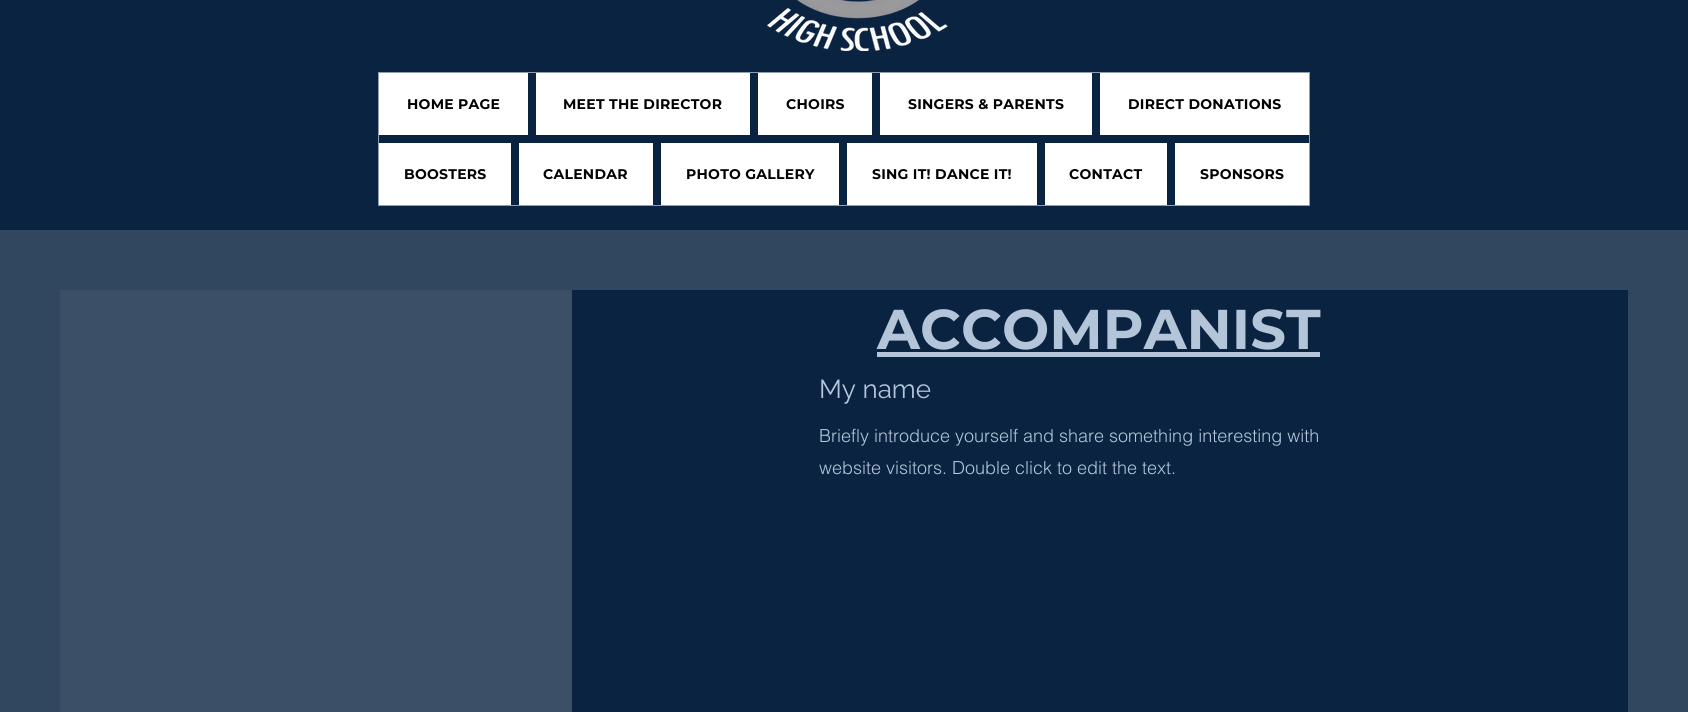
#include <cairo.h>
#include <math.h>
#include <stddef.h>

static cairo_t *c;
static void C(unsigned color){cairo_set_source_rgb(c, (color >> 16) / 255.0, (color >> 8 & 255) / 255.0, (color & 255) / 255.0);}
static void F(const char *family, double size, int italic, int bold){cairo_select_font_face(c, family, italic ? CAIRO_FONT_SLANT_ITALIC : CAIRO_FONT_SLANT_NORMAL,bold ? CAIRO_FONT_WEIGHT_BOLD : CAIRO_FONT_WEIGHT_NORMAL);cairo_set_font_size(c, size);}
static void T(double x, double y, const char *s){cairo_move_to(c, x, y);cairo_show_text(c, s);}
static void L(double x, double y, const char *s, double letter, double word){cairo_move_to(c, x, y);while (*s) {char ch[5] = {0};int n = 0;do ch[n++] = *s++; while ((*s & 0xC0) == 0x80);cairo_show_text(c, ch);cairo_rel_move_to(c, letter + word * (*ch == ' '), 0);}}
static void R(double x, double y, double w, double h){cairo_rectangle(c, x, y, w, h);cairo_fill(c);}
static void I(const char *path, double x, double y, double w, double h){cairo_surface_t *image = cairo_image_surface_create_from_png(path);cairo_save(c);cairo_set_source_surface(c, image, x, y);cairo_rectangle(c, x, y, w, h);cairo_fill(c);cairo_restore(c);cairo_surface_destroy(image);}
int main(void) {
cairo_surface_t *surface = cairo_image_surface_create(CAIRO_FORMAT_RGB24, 1688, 712);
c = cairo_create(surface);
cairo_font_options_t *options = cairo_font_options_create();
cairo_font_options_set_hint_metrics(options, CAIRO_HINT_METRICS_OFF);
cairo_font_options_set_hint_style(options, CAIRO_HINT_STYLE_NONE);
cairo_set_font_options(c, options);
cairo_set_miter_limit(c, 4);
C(0x0a2341);
cairo_paint(c);
I("1.png",767,0,181,51);
cairo_rectangle(c,378.5,72.5,931,133);
C(0x8d9eb3);
cairo_set_line_width(c,1);
cairo_stroke(c);
C(0xffffff);
R(379,73,149,62);
F("Montserrat",14,0,1);
C(0x000000);
L(407,109,"HOME PAGE",.25,0);
C(0xffffff);
R(536,73,214,62);
C(0x000000);
L(563,109,"MEET THE DIRECTOR",.25,0);
C(0xffffff);
R(758,73,114,62);
C(0x000000);
L(786,109,"CHOIRS",.25,0);
C(0xffffff);
R(880,73,212,62);
C(0x000000);
L(908,109,"SINGERS & PARENTS",.25,0);
C(0xffffff);
R(1100,73,209,62);
C(0x000000);
L(1128,109,"DIRECT DONATIONS",.25,0);
C(0xffffff);
R(379,143,132,62);
C(0x000000);
L(404,179,"BOOSTERS",.25,0);
C(0xffffff);
R(519,143,134,62);
C(0x000000);
L(543,179,"CALENDAR",.25,0);
C(0xffffff);
R(661,143,178,62);
C(0x000000);
L(686,179,"PHOTO GALLERY",.25,0);
C(0xffffff);
R(847,143,190,62);
C(0x000000);
L(872,179,"SING IT! DANCE IT!",.25,0);
C(0xffffff);
R(1045,143,122,62);
C(0x000000);
L(1069,179,"CONTACT",.25,0);
C(0xffffff);
R(1175,143,134,62);
C(0x000000);
L(1200,179,"SPONSORS",.25,0);
C(0x31465f);
R(0,230,1688,482);
C(0x3b4f67);
R(60,290,512,422);
C(0x0a2341);
R(572,290,1056,422);
F("Montserrat",56,0,1);
C(0xb4c5d9);
T(877,349,"ACCOMPANIST");
R(877,352,443,5);
F("Raleway",26,0,0);
T(819,398,"My name");
F("helvetica Light",18,0,0);
T(819,442,"Briefly introduce yourself and share something interesting with");
T(819,474,"website visitors. Double click to edit the text.");
cairo_surface_write_to_png(surface, "o.png");
cairo_font_options_destroy(options);
cairo_destroy(c);
cairo_surface_destroy(surface);
return 0;
}
